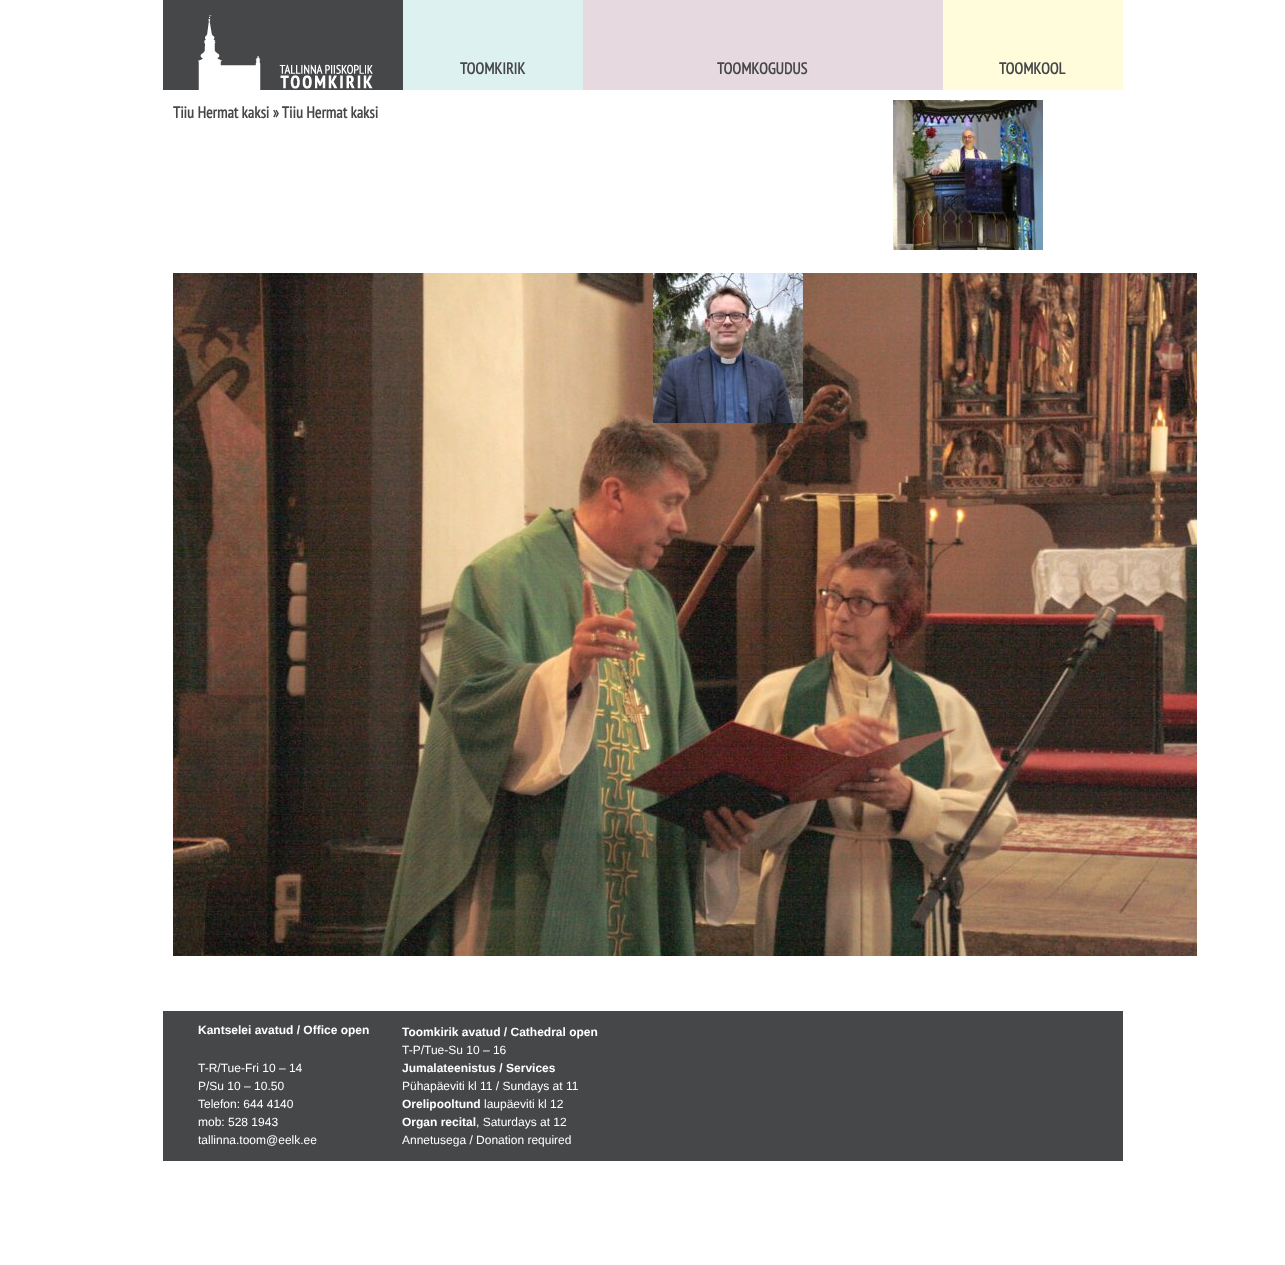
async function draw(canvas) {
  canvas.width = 1285;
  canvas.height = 1265;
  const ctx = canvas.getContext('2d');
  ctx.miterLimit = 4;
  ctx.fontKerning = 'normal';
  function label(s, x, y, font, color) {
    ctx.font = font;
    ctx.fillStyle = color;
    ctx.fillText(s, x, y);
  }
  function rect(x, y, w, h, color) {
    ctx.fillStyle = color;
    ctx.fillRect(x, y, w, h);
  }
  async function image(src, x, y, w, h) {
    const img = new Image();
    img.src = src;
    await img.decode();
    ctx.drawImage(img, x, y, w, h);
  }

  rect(0, 0, 1285, 1265, '#fff');
  rect(163, 0, 240, 90, '#464749');
  await image('assets/img1.png', 172, 0, 201, 90);
  rect(403, 0, 180, 90, '#ddf1f1');
  label('TOOMKIRIK', 460, 74, 'bold 16px PT Sans Narrow', '#464749');
  rect(583, 0, 360, 90, '#e6d9e0');
  label('TOOMKOGUDUS', 717, 74, 'bold 16px PT Sans Narrow', '#464749');
  rect(943, 0, 180, 90, '#fffcdb');
  label('TOOMKOOL', 999, 74, 'bold 16px PT Sans Narrow', '#464749');
  label('Tiiu Hermat kaksi » Tiiu Hermat kaksi', 173, 118, 'bold 16px PT Sans Narrow', '#464749');
  await image('assets/img2.png', 893, 100, 150, 150);
  await image('assets/img3.png', 173, 273, 1024, 683);
  await image('assets/img4.png', 653, 273, 150, 150);
  rect(163, 1011, 960, 150, '#464749');
  label('Kantselei avatud / Office open', 198, 1034, 'bold 12px Liberation Sans', '#fff');
  label('T-R/Tue-Fri 10 – 14', 198, 1072, '12px Liberation Sans', '#fff');
  label('P/Su 10 – 10.50', 198, 1090, '12px Liberation Sans', '#fff');
  label('Telefon: 644 4140', 198, 1108, '12px Liberation Sans', '#fff');
  label('mob: 528 1943', 198, 1126, '12px Liberation Sans', '#fff');
  label('tallinna.toom@eelk.ee', 198, 1144, '12px Liberation Sans', '#fff');
  label('Toomkirik avatud / Cathedral open', 402, 1036, 'bold 12px Liberation Sans', '#fff');
  label('T-P/Tue-Su 10 – 16', 402, 1054, '12px Liberation Sans', '#fff');
  label('Jumalateenistus / Services', 402, 1072, 'bold 12px Liberation Sans', '#fff');
  label('Pühapäeviti kl 11 / Sundays at 11', 402, 1090, '12px Liberation Sans', '#fff');
  label('Orelipooltund', 402, 1108, 'bold 12px Liberation Sans', '#fff');
  label('laupäeviti kl 12', 484, 1108, '12px Liberation Sans', '#fff');
  label('Organ recital', 402, 1126, 'bold 12px Liberation Sans', '#fff');
  label(', Saturdays at 12', 476, 1126, '12px Liberation Sans', '#fff');
  label('Annetusega / Donation required', 402, 1144, '12px Liberation Sans', '#fff');
}

draw(document.querySelector('canvas'));
